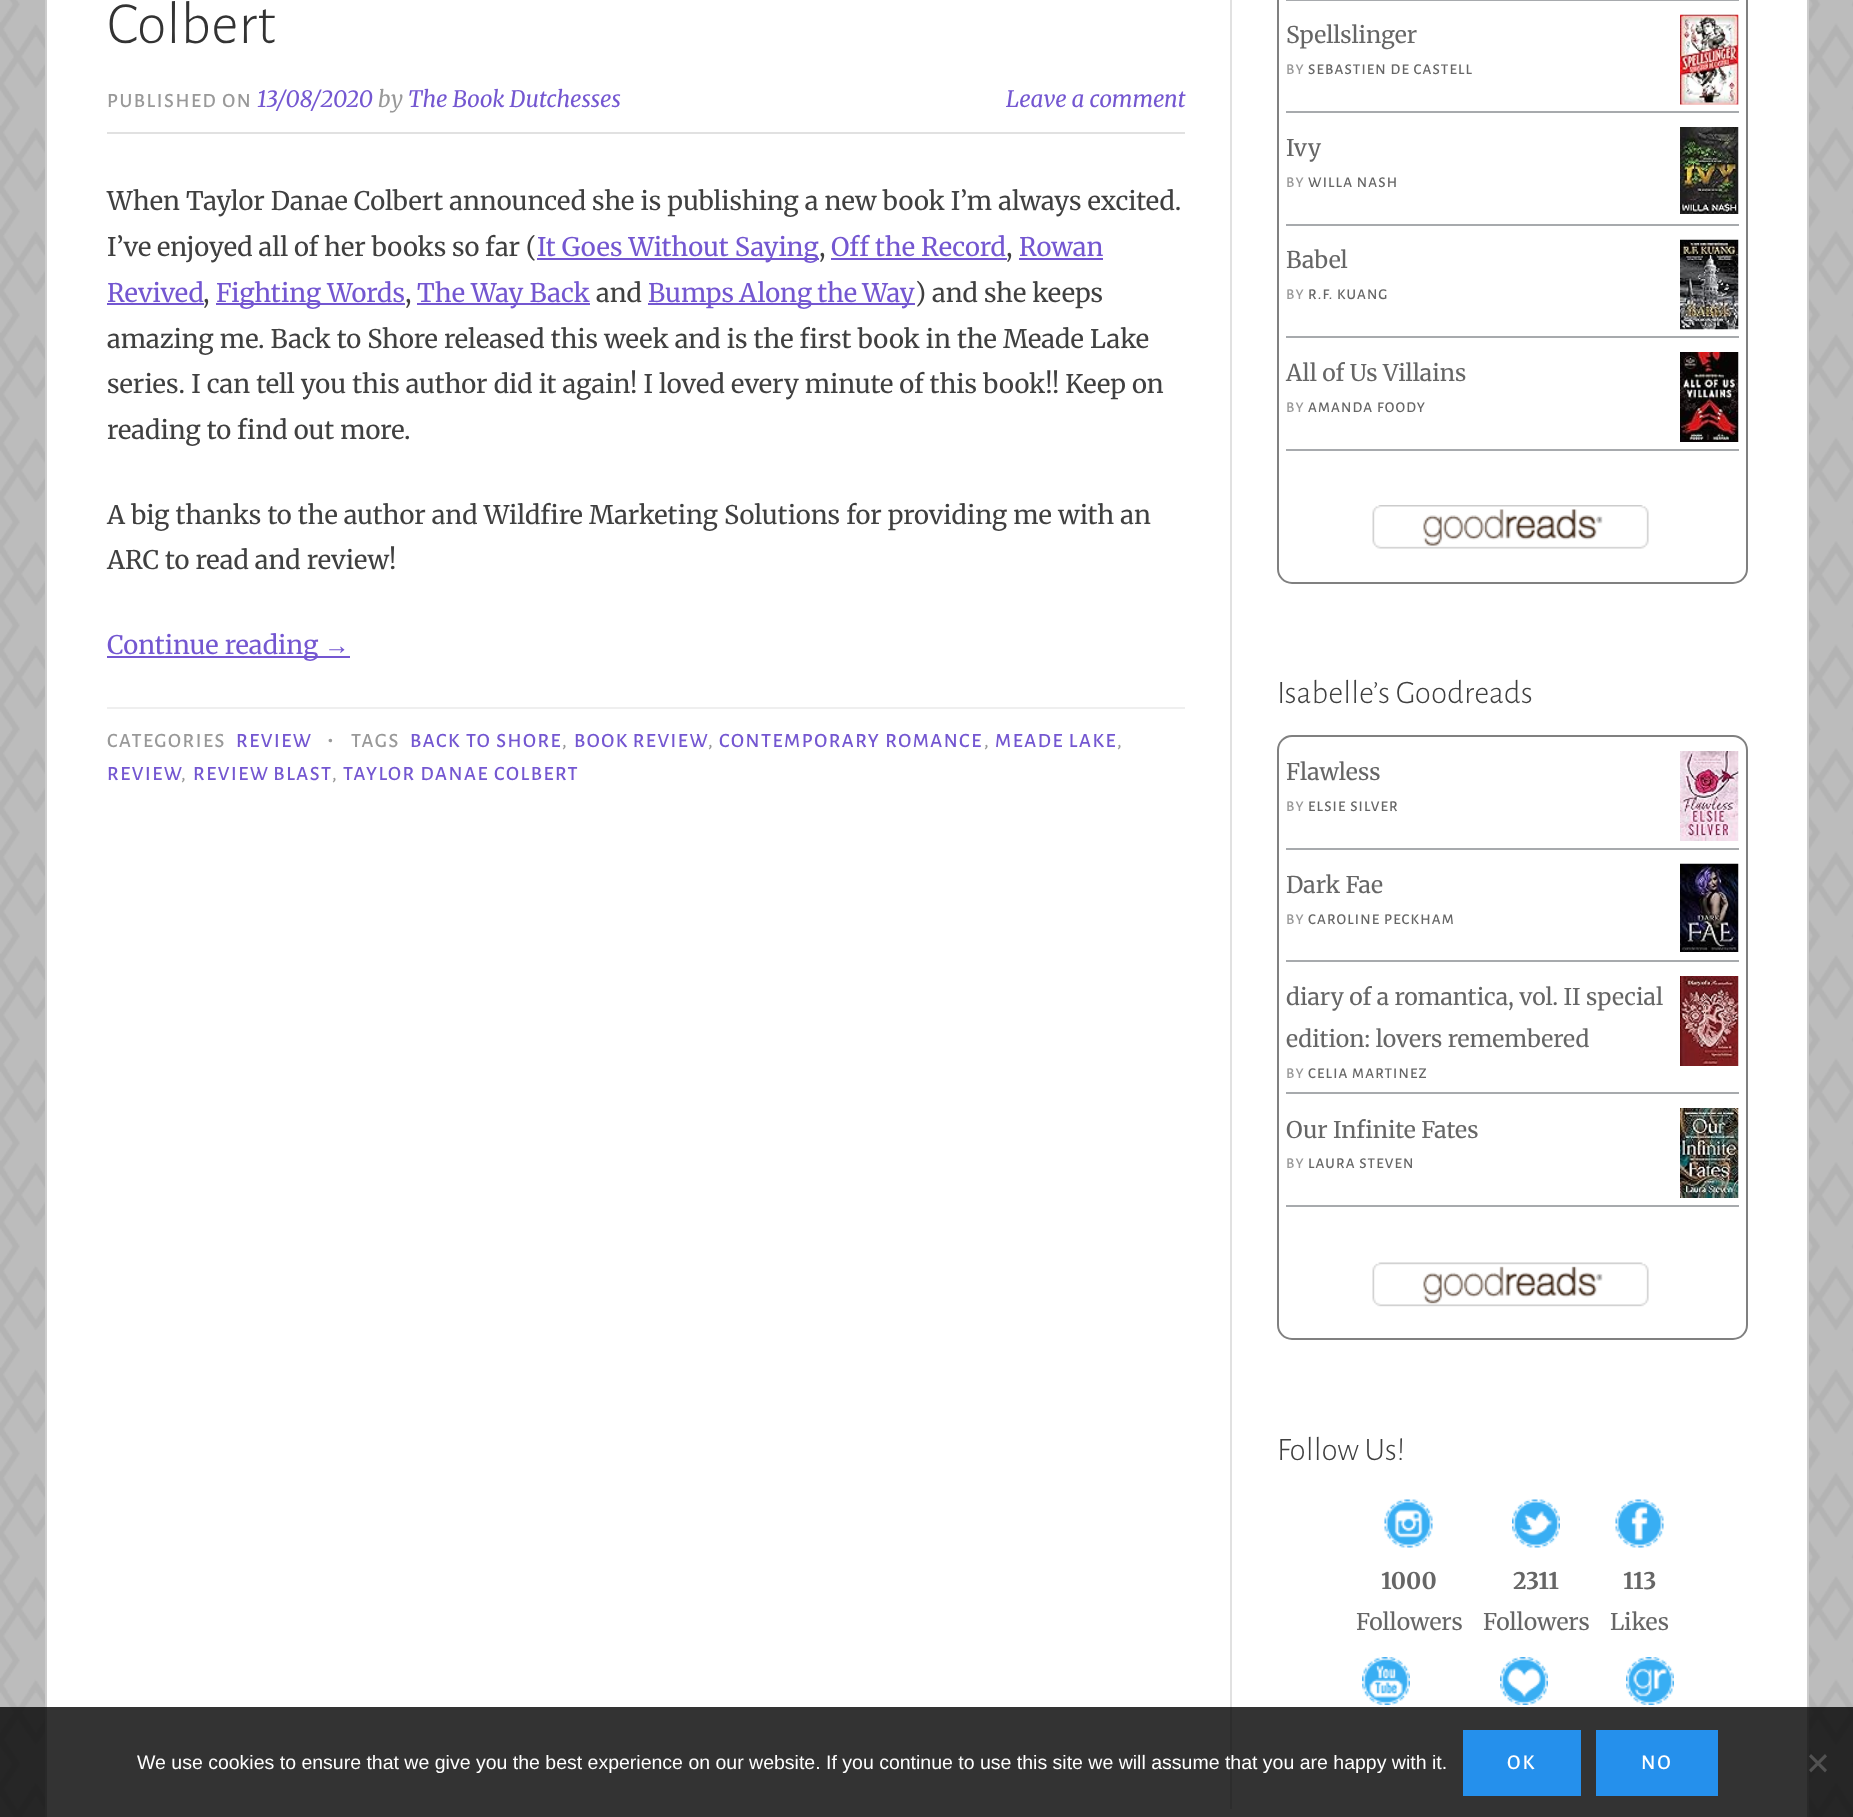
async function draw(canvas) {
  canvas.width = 1853;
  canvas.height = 1817;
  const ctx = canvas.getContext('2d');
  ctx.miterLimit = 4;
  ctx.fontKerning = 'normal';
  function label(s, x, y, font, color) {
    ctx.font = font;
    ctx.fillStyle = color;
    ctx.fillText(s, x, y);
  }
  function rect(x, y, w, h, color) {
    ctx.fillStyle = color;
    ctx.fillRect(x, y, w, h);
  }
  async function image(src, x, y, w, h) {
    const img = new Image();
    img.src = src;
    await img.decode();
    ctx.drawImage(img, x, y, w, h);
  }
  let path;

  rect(0, 0, 1853, 1817, '#bcbcbc');
  await image('assets/img1.png', 0, 0, 1853, 1817);
  ctx.fillStyle = '#fff';
  ctx.beginPath();
  ctx.rect(46, -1, 1762, 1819);
  ctx.fill();
  ctx.strokeStyle = '#ccc';
  ctx.lineWidth = 2;
  ctx.stroke();
  rect(107, 132, 1078, 2, '#e1e1e1');
  label('Colbert', 107, 43, '300 60px Alegreya Sans', '#333');
  ctx.letterSpacing = '1.6px';
  label('PUBLISHED ON', 107, 107, '500 20.25px Alegreya Sans', '#999');
  ctx.letterSpacing = '0px';
  label('13/08/2020', 257, 107, 'italic 22.5px Merriweather', '#7457d1');
  label('by', 378, 107, 'italic 22.5px Merriweather', '#999');
  label('The Book Dutchesses', 408, 107, 'italic 22.5px Merriweather', '#7457d1');
  label('Leave a comment', 1006, 107, 'italic 22.5px Merriweather', '#7457d1');
  label('When Taylor Danae Colbert announced she is publishing a new book I’m always excited.', 107, 210, '25.5px Merriweather', '#404040');
  ctx.wordSpacing = '-0.25px';
  label('I’ve enjoyed all of her books so far (', 107, 256, '25.5px Merriweather', '#404040');
  rect(537, 258, 282, 2, '#7457d1');
  ctx.wordSpacing = '0px';
  label('It Goes Without Saying', 537, 256, '25.5px Merriweather', '#7457d1');
  label(',', 819, 256, '25.5px Merriweather', '#404040');
  label('Off the Record', 831, 256, '25.5px Merriweather', '#7457d1');
  rect(831, 258, 176, 2, '#7457d1');
  label(',', 1006, 256, '25.5px Merriweather', '#404040');
  label('Rowan', 1019, 256, '25.5px Merriweather', '#7457d1');
  rect(1019, 258, 84, 2, '#7457d1');
  label('Revived', 107, 302, '25.5px Merriweather', '#7457d1');
  rect(107, 303, 97, 2, '#7457d1');
  label(',', 203, 302, '25.5px Merriweather', '#404040');
  rect(216, 303, 189, 2, '#7457d1');
  label('Fighting Words', 216, 302, '25.5px Merriweather', '#7457d1');
  label(',', 405, 302, '25.5px Merriweather', '#404040');
  rect(417, 303, 173, 2, '#7457d1');
  label('The Way Back', 417, 302, '25.5px Merriweather', '#7457d1');
  label('and', 596, 302, '25.5px Merriweather', '#404040');
  rect(648, 303, 267, 2, '#7457d1');
  ctx.wordSpacing = '-1px';
  label('Bumps Along the Way', 648, 302, '25.5px Merriweather', '#7457d1');
  ctx.wordSpacing = '0px';
  label(') and she keeps', 915, 302, '25.5px Merriweather', '#404040');
  label('amazing me. Back to Shore released this week and is the first book in the Meade Lake', 107, 348, '25.5px Merriweather', '#404040');
  label('series. I can tell you this author did it again! I loved every minute of this book!! Keep on', 107, 393, '25.5px Merriweather', '#404040');
  label('reading to find out more.', 107, 439, '25.5px Merriweather', '#404040');
  label('A big thanks to the author and Wildfire Marketing Solutions for providing me with an', 107, 524, '25.5px Merriweather', '#404040');
  label('ARC to read and review!', 107, 569, '25.5px Merriweather', '#404040');
  rect(107, 656, 243, 2, '#7457d1');
  label('Continue reading', 107, 654, '25.5px Merriweather', '#7457d1');
  label('→', 324, 654, '25.5px Liberation Serif', '#7457d1');
  rect(107, 707, 1078, 2, '#efefef');
  ctx.letterSpacing = '1.6px';
  label('CATEGORIES', 107, 747, '500 20.25px Alegreya Sans', '#999');
  label('REVIEW', 236, 747, '500 20.25px Alegreya Sans', '#7457d1');
  ctx.letterSpacing = '2px';
  label('•', 327, 747, '500 27px Alegreya Sans', '#999');
  ctx.letterSpacing = '1.6px';
  label('TAGS', 351, 747, '500 20.25px Alegreya Sans', '#999');
  label('BACK TO SHORE', 410, 747, '500 20.25px Alegreya Sans', '#7457d1');
  ctx.wordSpacing = '-1px';
  label('BOOK REVIEW', 574, 747, '500 20.25px Alegreya Sans', '#7457d1');
  ctx.wordSpacing = '0px';
  label('CONTEMPORARY ROMANCE', 719, 747, '500 20.25px Alegreya Sans', '#7457d1');
  label('MEADE LAKE', 995, 747, '500 20.25px Alegreya Sans', '#7457d1');
  label(',', 562, 747, '500 20.25px Alegreya Sans', '#999');
  label(',', 708, 747, '500 20.25px Alegreya Sans', '#999');
  label(',', 984, 747, '500 20.25px Alegreya Sans', '#999');
  label(',', 1117, 747, '500 20.25px Alegreya Sans', '#999');
  label('REVIEW', 107, 780, '500 20.25px Alegreya Sans', '#7457d1');
  label(',', 181, 780, '500 20.25px Alegreya Sans', '#999');
  ctx.wordSpacing = '-1px';
  label('REVIEW BLAST', 193, 780, '500 20.25px Alegreya Sans', '#7457d1');
  ctx.wordSpacing = '0px';
  label(',', 332, 780, '500 20.25px Alegreya Sans', '#999');
  label('TAYLOR DANAE COLBERT', 343, 780, '500 20.25px Alegreya Sans', '#7457d1');
  rect(1230, 0, 2, 1809, '#e1e1e1');
  ctx.beginPath();
  ctx.roundRect(1278, -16, 469, 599, 14);
  ctx.strokeStyle = '#808080';
  ctx.stroke();
  rect(1286, 0, 453, 1, '#a7aaad');
  rect(1286, 111, 453, 2, '#a7aaad');
  ctx.letterSpacing = '0px';
  label('Spellslinger', 1286, 43, '23px Merriweather', '#666');
  await image('assets/img2.png', 1680, 14, 59, 91);
  ctx.letterSpacing = '1.2px';
  label('BY', 1286, 74, '500 15px Alegreya Sans', '#999');
  label('SEBASTIEN DE CASTELL', 1308, 74, '500 15px Alegreya Sans', '#666');
  rect(1286, 224, 453, 2, '#a7aaad');
  ctx.letterSpacing = '0px';
  label('Ivy', 1286, 156, '23px Merriweather', '#666');
  await image('assets/img3.png', 1680, 127, 59, 87);
  ctx.letterSpacing = '1.2px';
  label('BY', 1286, 187, '500 15px Alegreya Sans', '#999');
  label('WILLA NASH', 1308, 187, '500 15px Alegreya Sans', '#666');
  rect(1286, 336, 453, 2, '#a7aaad');
  ctx.letterSpacing = '0px';
  label('Babel', 1286, 268, '23px Merriweather', '#666');
  await image('assets/img4.png', 1680, 239, 59, 91);
  ctx.letterSpacing = '1.2px';
  label('BY', 1286, 299, '500 15px Alegreya Sans', '#999');
  label('R.F. KUANG', 1308, 299, '500 15px Alegreya Sans', '#666');
  rect(1286, 449, 453, 2, '#a7aaad');
  ctx.letterSpacing = '0px';
  label('All of Us Villains', 1286, 381, '23px Merriweather', '#666');
  await image('assets/img5.png', 1680, 352, 59, 90);
  ctx.letterSpacing = '1.2px';
  label('BY', 1286, 412, '500 15px Alegreya Sans', '#999');
  label('AMANDA FOODY', 1308, 412, '500 15px Alegreya Sans', '#666');
  await image('assets/img6.png', 1372, 505, 277, 44);
  ctx.letterSpacing = '0px';
  label('Isabelle’s Goodreads', 1277, 703, '300 33px Alegreya Sans', '#404040');
  ctx.beginPath();
  ctx.roundRect(1278, 736, 469, 603, 14);
  ctx.stroke();
  rect(1286, 848, 453, 2, '#a7aaad');
  label('Flawless', 1286, 780, '23px Merriweather', '#666');
  await image('assets/img7.png', 1680, 751, 59, 90);
  ctx.letterSpacing = '1.2px';
  label('BY', 1286, 811, '500 15px Alegreya Sans', '#999');
  label('ELSIE SILVER', 1308, 811, '500 15px Alegreya Sans', '#666');
  rect(1286, 960, 453, 2, '#a7aaad');
  ctx.letterSpacing = '0px';
  label('Dark Fae', 1286, 893, '23px Merriweather', '#666');
  await image('assets/img8.png', 1680, 863, 59, 89);
  ctx.letterSpacing = '1.2px';
  label('BY', 1286, 924, '500 15px Alegreya Sans', '#999');
  label('CAROLINE PECKHAM', 1308, 924, '500 15px Alegreya Sans', '#666');
  rect(1286, 1092, 453, 2, '#a7aaad');
  ctx.letterSpacing = '0px';
  label('diary of a romantica, vol. II special', 1286, 1005, '23px Merriweather', '#666');
  label('edition: lovers remembered', 1286, 1047, '23px Merriweather', '#666');
  await image('assets/img9.png', 1680, 976, 59, 90);
  ctx.letterSpacing = '1.2px';
  label('BY', 1286, 1078, '500 15px Alegreya Sans', '#999');
  label('CELIA MARTINEZ', 1308, 1078, '500 15px Alegreya Sans', '#666');
  rect(1286, 1205, 453, 2, '#a7aaad');
  ctx.letterSpacing = '0px';
  label('Our Infinite Fates', 1286, 1138, '23px Merriweather', '#666');
  await image('assets/img10.png', 1680, 1108, 59, 90);
  ctx.letterSpacing = '1.2px';
  label('BY', 1286, 1168, '500 15px Alegreya Sans', '#999');
  label('LAURA STEVEN', 1308, 1168, '500 15px Alegreya Sans', '#666');
  await image('assets/img11.png', 1372, 1262, 277, 45);
  ctx.letterSpacing = '0px';
  label('Follow Us!', 1277, 1460, '300 33px Alegreya Sans', '#404040');
  await image('assets/img12.png', 1384, 1499, 49, 49);
  label('1000', 1381, 1589, 'bold 23px Merriweather', '#666');
  label('Followers', 1356, 1630, '23px Merriweather', '#666');
  await image('assets/img13.png', 1512, 1499, 48, 49);
  label('2311', 1513, 1589, 'bold 23px Merriweather', '#666');
  label('Followers', 1483, 1630, '23px Merriweather', '#666');
  await image('assets/img14.png', 1615, 1499, 49, 49);
  label('113', 1623, 1589, 'bold 23px Merriweather', '#666');
  label('Likes', 1610, 1630, '23px Merriweather', '#666');
  await image('assets/img15.png', 1362, 1657, 48, 48);
  await image('assets/img16.png', 1500, 1657, 48, 48);
  await image('assets/img17.png', 1626, 1657, 48, 48);
  rect(0, 1707, 1853, 110, '#000000cc');
  label('We use cookies to ensure that we give you the best experience on our website. If you continue to use this site we will assume that you are happy with it.', 137, 1769, '19.5px Liberation Sans', '#fff');
  rect(1463, 1730, 118, 66, '#2590ec');
  ctx.letterSpacing = '2px';
  label('OK', 1507, 1769, '500 21px Alegreya Sans', '#fff');
  rect(1596, 1730, 122, 66, '#2590ec');
  label('NO', 1641, 1769, '500 21px Alegreya Sans', '#fff');
  ctx.fillStyle = '#525252';
  path = new Path2D('M1825 1754L1827 1756.5L1811 1772.5L1809 1770Z');
  ctx.fill(path);
  path = new Path2D('M1809 1756.5L1811 1754L1827 1770L1825 1772.5Z');
  ctx.fill(path);
}

draw(document.querySelector('canvas'));
